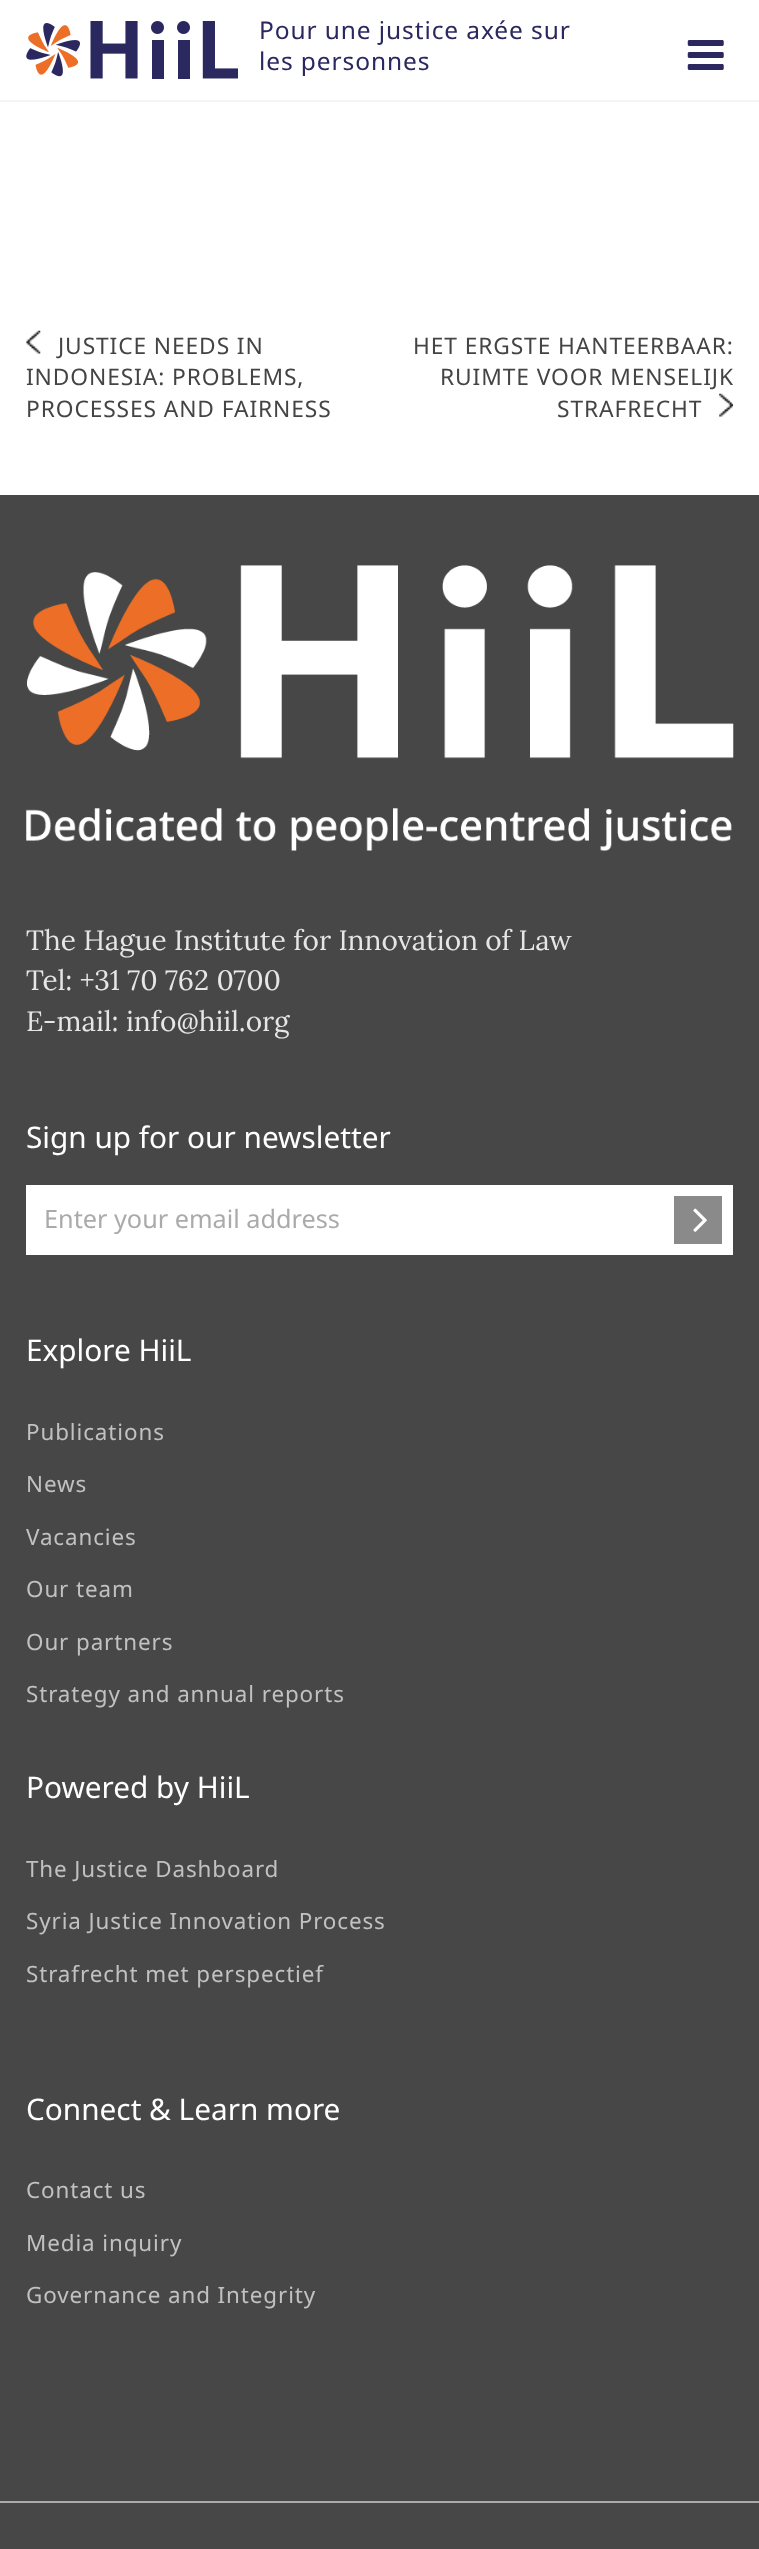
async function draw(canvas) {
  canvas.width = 759;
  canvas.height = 2549;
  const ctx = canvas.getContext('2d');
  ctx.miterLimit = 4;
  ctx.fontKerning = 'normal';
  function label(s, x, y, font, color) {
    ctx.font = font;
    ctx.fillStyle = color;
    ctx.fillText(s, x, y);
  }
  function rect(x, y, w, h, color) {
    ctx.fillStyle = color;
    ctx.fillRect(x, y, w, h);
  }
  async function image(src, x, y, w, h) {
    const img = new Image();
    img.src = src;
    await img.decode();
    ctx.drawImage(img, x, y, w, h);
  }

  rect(0, 0, 759, 2549, '#fff');
  rect(0, 100, 759, 2, '#f4f4f4');
  await image('assets/img1.png', 26, 21, 212, 58);
  ctx.letterSpacing = '0.9px';
  label('Pour une justice axée sur', 259, 39, '24.5px Noto Sans', '#2a285f');
  label('les personnes', 259, 70, '24.5px Noto Sans', '#2a285f');
  await image('assets/img2.png', 26, 330, 15, 24);
  label('JUSTICE NEEDS IN', 58, 354, '22.75px Noto Sans', '#444');
  label('INDONESIA: PROBLEMS,', 26, 385, '22.75px Noto Sans', '#444');
  label('PROCESSES AND FAIRNESS', 26, 417, '22.75px Noto Sans', '#444');
  label('HET ERGSTE HANTEERBAAR:', 413, 354, '22.75px Noto Sans', '#444');
  label('RUIMTE VOOR MENSELIJK', 440, 385, '22.75px Noto Sans', '#444');
  label('STRAFRECHT', 557, 417, '22.75px Noto Sans', '#444');
  await image('assets/img3.png', 719, 393, 15, 24);
  rect(0, 495, 759, 830, '#464746');
  await image('assets/img4.png', 26, 565, 708, 286);
  ctx.letterSpacing = '0px';
  label('The Hague Institute for Innovation of Law', 26, 950, '28px Lora', '#e6e6e6');
  label('Tel: +31 70 762 0700', 26, 990, '28px Lora', '#e6e6e6');
  label('E-mail: info@hiil.org', 26, 1031, '28px Lora', '#e6e6e6');
  label('Sign up for our newsletter', 26, 1148, '29.75px Noto Sans', '#fff');
  rect(26, 1185, 637, 70, '#fff');
  label('Enter your email address', 44, 1228, '25.25px Noto Sans', '#aaa');
  ctx.fillStyle = '#8a8a8a';
  ctx.beginPath();
  ctx.rect(668.5, 1190.5, 59, 59);
  ctx.fill();
  ctx.strokeStyle = '#fff';
  ctx.lineWidth = 11;
  ctx.stroke();
  await image('assets/img5.png', 693, 1208, 14, 24);
  rect(0, 1325, 759, 1224, '#464746');
  rect(0, 2501, 759, 2, '#aaa');
  label('Explore HiiL', 26, 1361, '29.75px Noto Sans', '#fff');
  ctx.letterSpacing = '0.9px';
  label('Publications', 26, 1440, '22.4px Noto Sans', '#c1c1c1');
  label('News', 26, 1492, '22.4px Noto Sans', '#c1c1c1');
  label('Vacancies', 26, 1545, '22.4px Noto Sans', '#c1c1c1');
  label('Our team', 26, 1597, '22.4px Noto Sans', '#c1c1c1');
  label('Our partners', 26, 1650, '22.4px Noto Sans', '#c1c1c1');
  label('Strategy and annual reports', 26, 1702, '22.4px Noto Sans', '#c1c1c1');
  ctx.letterSpacing = '0px';
  label('Powered by HiiL', 26, 1798, '29.75px Noto Sans', '#fff');
  ctx.letterSpacing = '0.9px';
  label('The Justice Dashboard', 26, 1877, '22.4px Noto Sans', '#c1c1c1');
  label('Syria Justice Innovation Process', 26, 1929, '22.4px Noto Sans', '#c1c1c1');
  label('Strafrecht met perspectief', 26, 1982, '22.4px Noto Sans', '#c1c1c1');
  ctx.letterSpacing = '0px';
  label('Connect & Learn more', 26, 2120, '29.75px Noto Sans', '#fff');
  ctx.letterSpacing = '0.9px';
  label('Contact us', 26, 2198, '22.4px Noto Sans', '#c1c1c1');
  label('Media inquiry', 26, 2251, '22.4px Noto Sans', '#c1c1c1');
  label('Governance and Integrity', 26, 2303, '22.4px Noto Sans', '#c1c1c1');
  await image('assets/img6.png', 687, 40, 37, 30);
}

draw(document.querySelector('canvas'));
